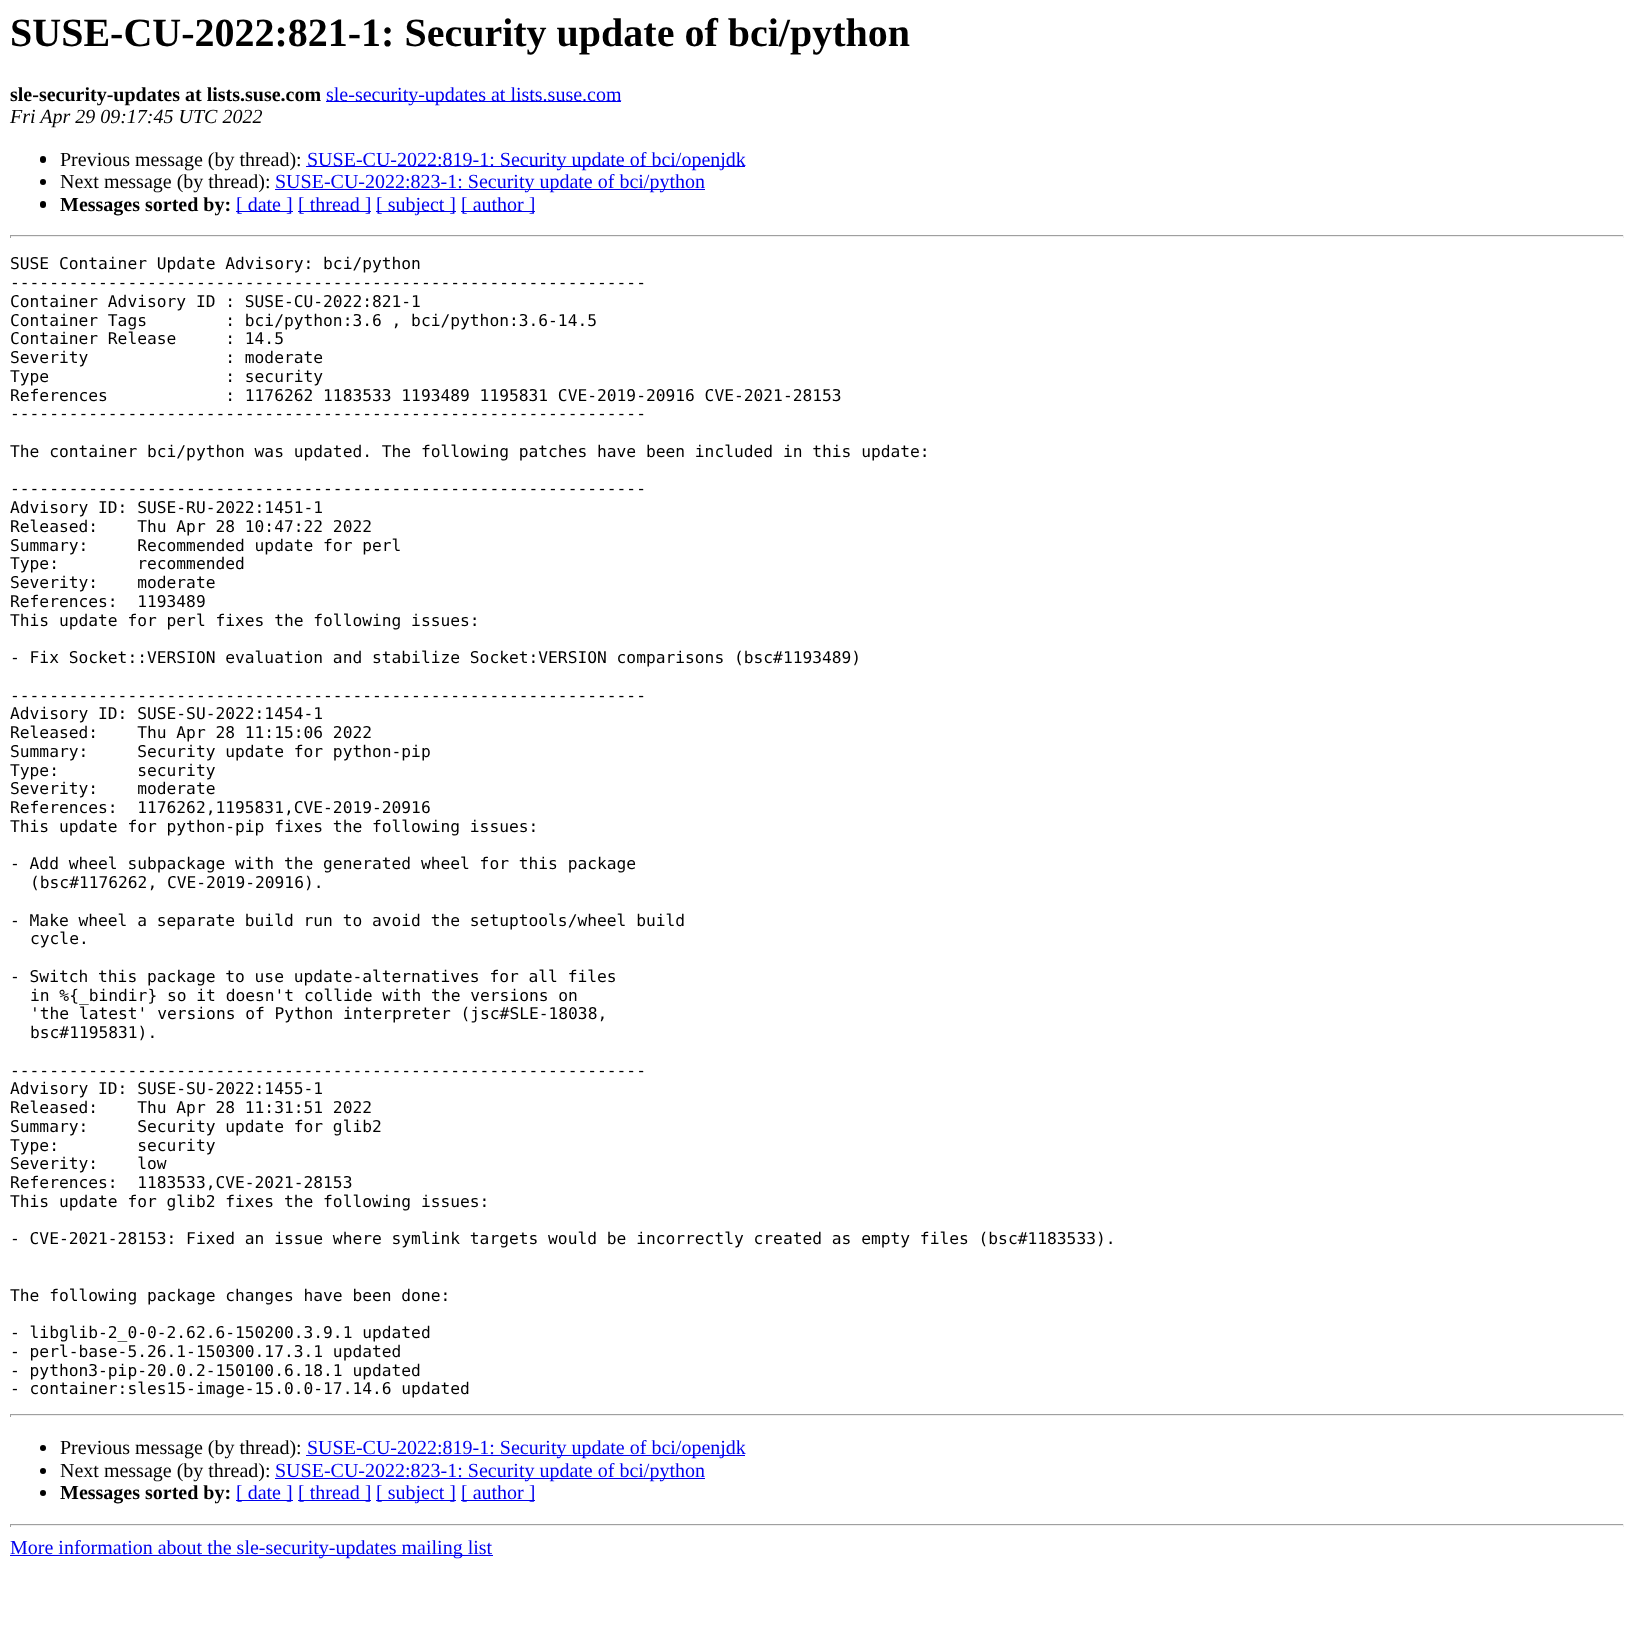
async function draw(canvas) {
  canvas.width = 1633;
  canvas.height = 1631;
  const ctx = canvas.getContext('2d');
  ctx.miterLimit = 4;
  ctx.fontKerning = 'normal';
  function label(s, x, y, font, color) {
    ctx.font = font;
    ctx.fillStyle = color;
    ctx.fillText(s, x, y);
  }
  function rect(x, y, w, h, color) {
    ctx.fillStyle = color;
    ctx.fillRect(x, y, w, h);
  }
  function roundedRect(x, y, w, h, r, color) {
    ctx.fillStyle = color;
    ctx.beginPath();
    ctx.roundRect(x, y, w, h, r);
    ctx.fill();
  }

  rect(0, 0, 1633, 1631, '#fff');
  label('SUSE-CU-2022:821-1: Security update of bci/python', 10, 46, 'bold 40px Liberation Serif', '#000');
  label('sle-security-updates at lists.suse.com', 10, 101, 'bold 20px Liberation Serif', '#000');
  rect(326, 101, 295, 1, '#00e');
  label('sle-security-updates at lists.suse.com', 326, 101, '20px Liberation Serif', '#00e');
  label('Fri Apr 29 09:17:45 UTC 2022', 10, 123, 'italic 20px Liberation Serif', '#000');
  roundedRect(40, 156, 6, 7, 3, '#000');
  label('Previous message (by thread):', 60, 166, '20px Liberation Serif', '#000');
  rect(306, 166, 439, 1, '#00e');
  label('SUSE-CU-2022:819-1: Security update of bci/openjdk', 307, 166, '20px Liberation Serif', '#00e');
  ctx.fillStyle = '#000';
  ctx.beginPath();
  ctx.arc(43, 182, 3, 0, 2 * Math.PI);
  ctx.fill();
  label('Next message (by thread):', 60, 188, '20px Liberation Serif', '#000');
  rect(275, 189, 430, 1, '#00e');
  label('SUSE-CU-2022:823-1: Security update of bci/python', 275, 188, '20px Liberation Serif', '#00e');
  roundedRect(40, 201, 6, 7, 3, '#000');
  label('Messages sorted by:', 60, 211, 'bold 20px Liberation Serif', '#000');
  rect(236, 211, 57, 1, '#00e');
  label('[ date ]', 236, 211, '20px Liberation Serif', '#00e');
  rect(298, 211, 73, 1, '#00e');
  label('[ thread ]', 298, 211, '20px Liberation Serif', '#00e');
  rect(376, 211, 80, 1, '#00e');
  label('[ subject ]', 376, 211, '20px Liberation Serif', '#00e');
  rect(461, 211, 74, 1, '#00e');
  label('[ author ]', 461, 211, '20px Liberation Serif', '#00e');
  rect(10, 235, 1614, 1, '#9f9f9f');
  rect(1623, 235, 1, 3, '#eee');
  rect(10, 236, 1614, 1, '#eee');
  rect(10, 235, 1, 3, '#9f9f9f');
  label('SUSE Container Update Advisory: bci/python', 10, 269, '16.25px DejaVu Sans Mono', '#000');
  label('-----------------------------------------------------------------', 10, 288, '16.25px DejaVu Sans Mono', '#000');
  label('Container Advisory ID : SUSE-CU-2022:821-1', 10, 307, '16.25px DejaVu Sans Mono', '#000');
  label('Container Tags        : bci/python:3.6 , bci/python:3.6-14.5', 10, 326, '16.25px DejaVu Sans Mono', '#000');
  label('Container Release     : 14.5', 10, 344, '16.25px DejaVu Sans Mono', '#000');
  label('Severity              : moderate', 10, 363, '16.25px DejaVu Sans Mono', '#000');
  label('Type                  : security', 10, 382, '16.25px DejaVu Sans Mono', '#000');
  label('References            : 1176262 1183533 1193489 1195831 CVE-2019-20916 CVE-2021-28153', 10, 401, '16.25px DejaVu Sans Mono', '#000');
  label('-----------------------------------------------------------------', 10, 419, '16.25px DejaVu Sans Mono', '#000');
  label('The container bci/python was updated. The following patches have been included in this update:', 10, 457, '16.25px DejaVu Sans Mono', '#000');
  label('-----------------------------------------------------------------', 10, 494, '16.25px DejaVu Sans Mono', '#000');
  label('Advisory ID: SUSE-RU-2022:1451-1', 10, 513, '16.25px DejaVu Sans Mono', '#000');
  label('Released:    Thu Apr 28 10:47:22 2022', 10, 532, '16.25px DejaVu Sans Mono', '#000');
  label('Summary:     Recommended update for perl', 10, 551, '16.25px DejaVu Sans Mono', '#000');
  label('Type:        recommended', 10, 569, '16.25px DejaVu Sans Mono', '#000');
  label('Severity:    moderate', 10, 588, '16.25px DejaVu Sans Mono', '#000');
  label('References:  1193489', 10, 607, '16.25px DejaVu Sans Mono', '#000');
  label('This update for perl fixes the following issues:', 10, 626, '16.25px DejaVu Sans Mono', '#000');
  label('- Fix Socket::VERSION evaluation and stabilize Socket:VERSION comparisons (bsc#1193489)', 10, 663, '16.25px DejaVu Sans Mono', '#000');
  label('-----------------------------------------------------------------', 10, 701, '16.25px DejaVu Sans Mono', '#000');
  label('Advisory ID: SUSE-SU-2022:1454-1', 10, 719, '16.25px DejaVu Sans Mono', '#000');
  label('Released:    Thu Apr 28 11:15:06 2022', 10, 738, '16.25px DejaVu Sans Mono', '#000');
  label('Summary:     Security update for python-pip', 10, 757, '16.25px DejaVu Sans Mono', '#000');
  label('Type:        security', 10, 776, '16.25px DejaVu Sans Mono', '#000');
  label('Severity:    moderate', 10, 794, '16.25px DejaVu Sans Mono', '#000');
  label('References:  1176262,1195831,CVE-2019-20916', 10, 813, '16.25px DejaVu Sans Mono', '#000');
  label('This update for python-pip fixes the following issues:', 10, 832, '16.25px DejaVu Sans Mono', '#000');
  label('- Add wheel subpackage with the generated wheel for this package', 10, 869, '16.25px DejaVu Sans Mono', '#000');
  label('(bsc#1176262, CVE-2019-20916).', 30, 888, '16.25px DejaVu Sans Mono', '#000');
  label('- Make wheel a separate build run to avoid the setuptools/wheel build', 10, 926, '16.25px DejaVu Sans Mono', '#000');
  label('cycle.', 30, 944, '16.25px DejaVu Sans Mono', '#000');
  label('- Switch this package to use update-alternatives for all files', 10, 982, '16.25px DejaVu Sans Mono', '#000');
  label('in %{_bindir} so it doesn\'t collide with the versions on', 30, 1001, '16.25px DejaVu Sans Mono', '#000');
  label('\'the latest\' versions of Python interpreter (jsc#SLE-18038,', 30, 1019, '16.25px DejaVu Sans Mono', '#000');
  label('bsc#1195831).', 30, 1038, '16.25px DejaVu Sans Mono', '#000');
  label('-----------------------------------------------------------------', 10, 1076, '16.25px DejaVu Sans Mono', '#000');
  label('Advisory ID: SUSE-SU-2022:1455-1', 10, 1094, '16.25px DejaVu Sans Mono', '#000');
  label('Released:    Thu Apr 28 11:31:51 2022', 10, 1113, '16.25px DejaVu Sans Mono', '#000');
  label('Summary:     Security update for glib2', 10, 1132, '16.25px DejaVu Sans Mono', '#000');
  label('Type:        security', 10, 1151, '16.25px DejaVu Sans Mono', '#000');
  label('Severity:    low', 10, 1169, '16.25px DejaVu Sans Mono', '#000');
  label('References:  1183533,CVE-2021-28153', 10, 1188, '16.25px DejaVu Sans Mono', '#000');
  label('This update for glib2 fixes the following issues:', 10, 1207, '16.25px DejaVu Sans Mono', '#000');
  label('- CVE-2021-28153: Fixed an issue where symlink targets would be incorrectly created as empty files (bsc#1183533).', 10, 1244, '16.25px DejaVu Sans Mono', '#000');
  label('The following package changes have been done:', 10, 1301, '16.25px DejaVu Sans Mono', '#000');
  label('- libglib-2_0-0-2.62.6-150200.3.9.1 updated', 10, 1338, '16.25px DejaVu Sans Mono', '#000');
  label('- perl-base-5.26.1-150300.17.3.1 updated', 10, 1357, '16.25px DejaVu Sans Mono', '#000');
  label('- python3-pip-20.0.2-150100.6.18.1 updated', 10, 1376, '16.25px DejaVu Sans Mono', '#000');
  label('- container:sles15-image-15.0.0-17.14.6 updated', 10, 1394, '16.25px DejaVu Sans Mono', '#000');
  rect(10, 1414, 1614, 1, '#9f9f9f');
  rect(1623, 1414, 1, 3, '#eee');
  rect(10, 1415, 1614, 1, '#eee');
  rect(10, 1414, 1, 3, '#9f9f9f');
  ctx.fillStyle = '#000';
  ctx.beginPath();
  ctx.arc(43, 1448, 3, 0, 2 * Math.PI);
  ctx.fill();
  label('Previous message (by thread):', 60, 1454, '20px Liberation Serif', '#000');
  rect(306, 1455, 439, 1, '#00e');
  label('SUSE-CU-2022:819-1: Security update of bci/openjdk', 307, 1454, '20px Liberation Serif', '#00e');
  ctx.fillStyle = '#000';
  ctx.beginPath();
  ctx.arc(43, 1471, 3, 0, 2 * Math.PI);
  ctx.fill();
  label('Next message (by thread):', 60, 1477, '20px Liberation Serif', '#000');
  rect(275, 1478, 430, 1, '#00e');
  label('SUSE-CU-2022:823-1: Security update of bci/python', 275, 1477, '20px Liberation Serif', '#00e');
  ctx.fillStyle = '#000';
  ctx.beginPath();
  ctx.arc(43, 1493, 3, 0, 2 * Math.PI);
  ctx.fill();
  label('Messages sorted by:', 60, 1499, 'bold 20px Liberation Serif', '#000');
  rect(236, 1500, 57, 1, '#00e');
  label('[ date ]', 236, 1499, '20px Liberation Serif', '#00e');
  rect(298, 1500, 73, 1, '#00e');
  label('[ thread ]', 298, 1499, '20px Liberation Serif', '#00e');
  rect(376, 1500, 80, 1, '#00e');
  label('[ subject ]', 376, 1499, '20px Liberation Serif', '#00e');
  rect(461, 1500, 74, 1, '#00e');
  label('[ author ]', 461, 1499, '20px Liberation Serif', '#00e');
  rect(10, 1524, 1614, 1, '#9f9f9f');
  rect(1623, 1524, 1, 3, '#eee');
  rect(10, 1525, 1614, 1, '#eee');
  rect(10, 1524, 1, 3, '#9f9f9f');
  rect(10, 1555, 483, 1, '#00e');
  label('More information about the sle-security-updates mailing list', 10, 1554, '20px Liberation Serif', '#00e');
}

draw(document.querySelector('canvas'));
